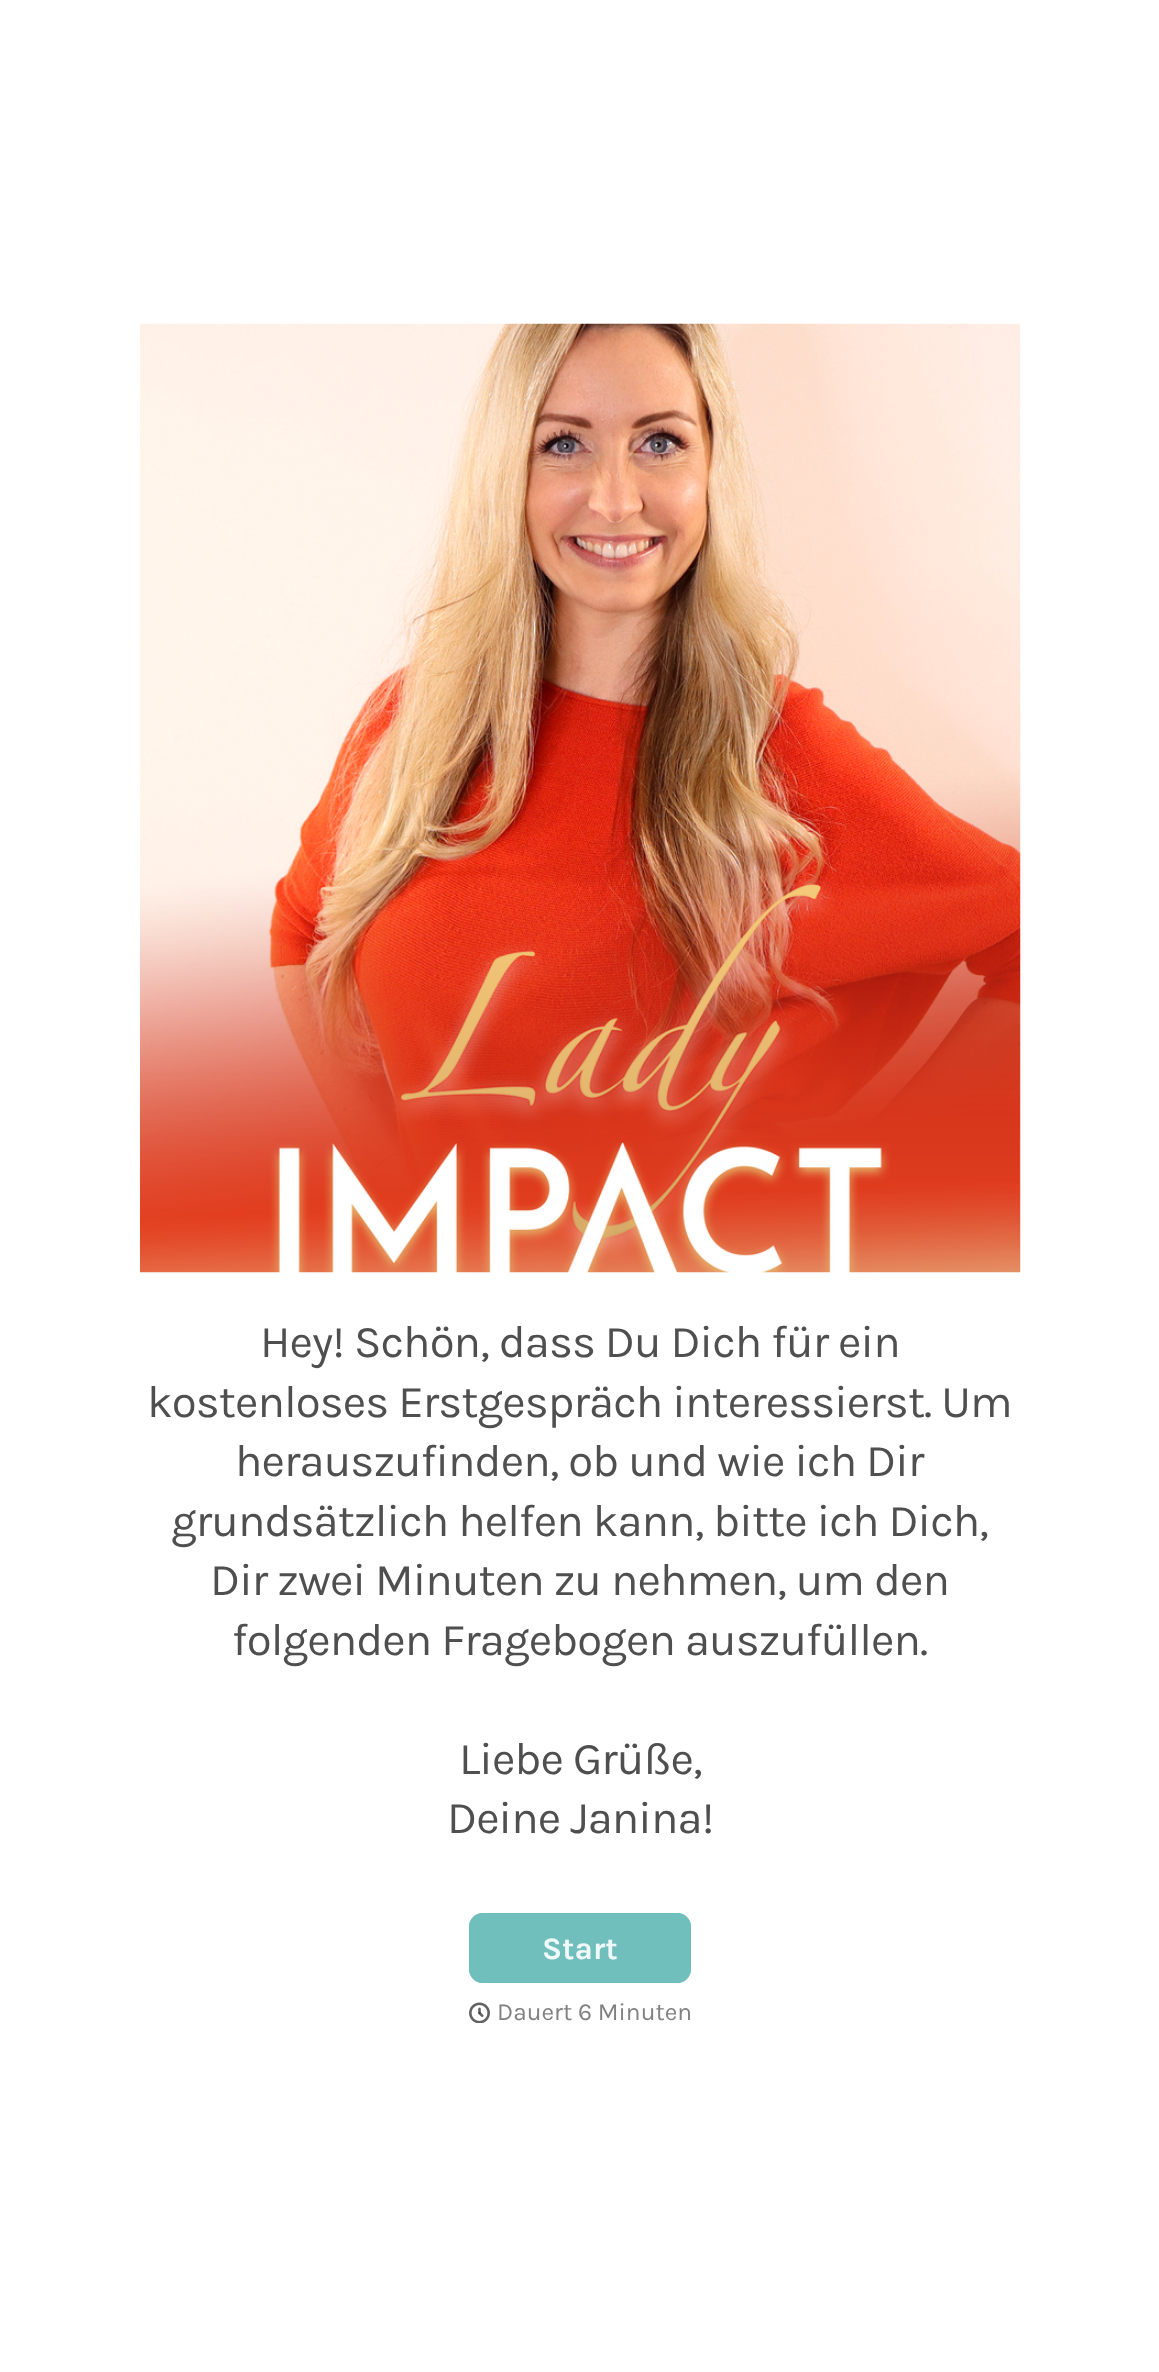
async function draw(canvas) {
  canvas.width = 1159;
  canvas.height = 2372;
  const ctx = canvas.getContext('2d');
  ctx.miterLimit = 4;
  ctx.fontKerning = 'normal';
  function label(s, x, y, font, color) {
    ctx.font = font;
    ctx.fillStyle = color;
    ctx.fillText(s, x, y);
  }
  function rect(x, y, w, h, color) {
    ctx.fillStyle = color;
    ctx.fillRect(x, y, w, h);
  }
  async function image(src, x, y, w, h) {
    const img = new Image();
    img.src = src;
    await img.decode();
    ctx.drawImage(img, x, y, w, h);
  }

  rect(0, 0, 1159, 2372, '#fff');
  await image('assets/img1.png', 140, 323, 881, 950);
  ctx.letterSpacing = '-0.9px';
  label('Hey! Schön, dass Du Dich für ein', 260, 1357, '45.5px Karla', '#4f4f4f');
  label('kostenloses Erstgespräch interessierst. Um', 147, 1417, '45.5px Karla', '#4f4f4f');
  label('herauszufinden, ob und wie ich Dir', 235, 1476, '45.5px Karla', '#4f4f4f');
  label('grundsätzlich helfen kann, bitte ich Dich,', 171, 1536, '45.5px Karla', '#4f4f4f');
  label('Dir zwei Minuten zu nehmen, um den', 210, 1595, '45.5px Karla', '#4f4f4f');
  label('folgenden Fragebogen auszufüllen.', 232, 1655, '45.5px Karla', '#4f4f4f');
  label('Liebe Grüße,', 459, 1774, '45.5px Karla', '#4f4f4f');
  label('Deine Janina!', 447, 1833, '45.5px Karla', '#4f4f4f');
  ctx.beginPath();
  ctx.roundRect(470, 1914, 220, 68, 13);
  ctx.strokeStyle = '#70bfbd';
  ctx.lineWidth = 2;
  ctx.stroke();
  ctx.fillStyle = '#70bfbd';
  ctx.filter = 'blur(0.5px)';
  ctx.beginPath();
  ctx.roundRect(469, 1913, 222, 70, 14);
  ctx.fill();
  ctx.filter = 'none';
  ctx.letterSpacing = '0px';
  label('Start', 542, 1959, 'bold 31.5px Karla', '#f0f9f9');
  await image('assets/img2.png', 469, 2002, 21, 21);
  label('Dauert 6 Minuten', 497, 2020, '24.5px Karla', '#818181');
}

draw(document.querySelector('canvas'));
